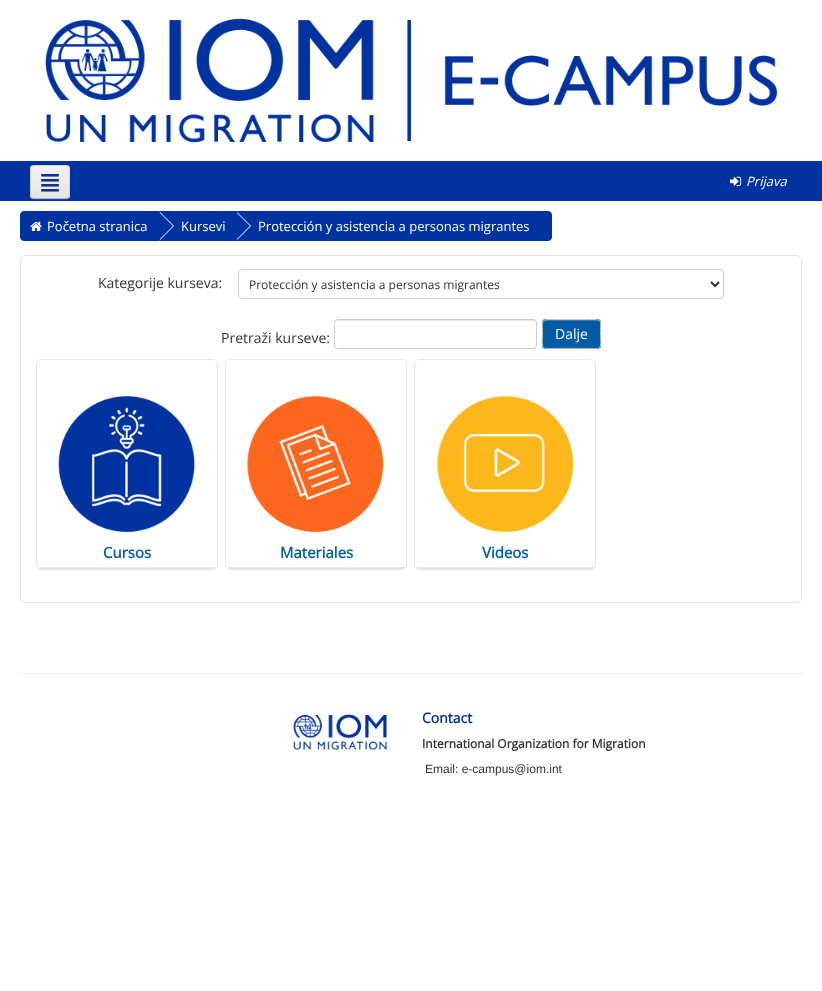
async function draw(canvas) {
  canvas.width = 822;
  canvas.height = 991;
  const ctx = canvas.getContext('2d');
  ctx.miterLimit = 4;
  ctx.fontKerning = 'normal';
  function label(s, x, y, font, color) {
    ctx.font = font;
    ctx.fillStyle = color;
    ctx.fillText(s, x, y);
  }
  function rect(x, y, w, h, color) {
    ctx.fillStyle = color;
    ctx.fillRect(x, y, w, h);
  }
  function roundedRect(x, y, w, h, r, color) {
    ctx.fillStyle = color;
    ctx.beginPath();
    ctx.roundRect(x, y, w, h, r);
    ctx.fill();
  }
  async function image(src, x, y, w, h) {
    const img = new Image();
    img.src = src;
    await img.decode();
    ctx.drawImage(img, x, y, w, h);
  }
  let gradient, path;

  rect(0, 0, 822, 991, '#fff');
  await image('assets/img1.png', 45, 18, 732, 125);
  rect(0, 161, 822, 40, '#0033a0');
  ctx.fillStyle = '#1342a7';
  path = new Path2D('M30 195C30 201 35 200 39 200H61C65 200 70 201 70 195C70 197 68 199 66 199H34C32 199 30 197 30 195Z');
  ctx.fill(path);
  roundedRect(30, 165, 40, 34, 4, '#ededed');
  ctx.save();
  ctx.beginPath();
  ctx.roundRect(30, 165, 40, 34, 4);
  ctx.clip();
  gradient = ctx.createLinearGradient(50, 166, 50, 198);
  gradient.addColorStop(0, '#f2f2f2');
  gradient.addColorStop(1, '#e5e5e5');
  ctx.fillStyle = gradient;
  ctx.fillRect(30, 166, 40, 32);
  ctx.restore();
  path = new Path2D('M68.5 197.5C68 198 67 198.5 66 198.5H34C33 198.5 32 198 31.5 197.5');
  ctx.strokeStyle = '#00000040';
  ctx.stroke(path);
  path = new Path2D('M31.5 197.5C30 196 30.5 192.5 30.5 190.5V173.5C30.5 165 31 165.5 39.5 165.5H60.5C69 165.5 69.5 165 69.5 173.5V190.5C69.5 192.5 70 196 68.5 197.5');
  ctx.strokeStyle = '#0000001a';
  ctx.stroke(path);
  ctx.fillStyle = '#00000073';
  ctx.filter = 'blur(0.5px)';
  ctx.beginPath();
  ctx.roundRect(41, 175, 18, 2, 1);
  ctx.fill();
  ctx.filter = 'none';
  roundedRect(41, 174, 18, 2, 1, '#0033a0');
  ctx.fillStyle = '#00000073';
  ctx.filter = 'blur(0.5px)';
  ctx.beginPath();
  ctx.roundRect(41, 180, 18, 2, 1);
  ctx.fill();
  ctx.filter = 'none';
  roundedRect(41, 179, 18, 2, 1, '#0033a0');
  ctx.fillStyle = '#00000073';
  ctx.filter = 'blur(0.5px)';
  ctx.beginPath();
  ctx.roundRect(41, 185, 18, 2, 1);
  ctx.fill();
  ctx.filter = 'none';
  roundedRect(41, 184, 18, 2, 1, '#0033a0');
  ctx.fillStyle = '#00000073';
  ctx.filter = 'blur(0.5px)';
  ctx.beginPath();
  ctx.roundRect(41, 190, 18, 2, 1);
  ctx.fill();
  ctx.filter = 'none';
  roundedRect(41, 189, 18, 2, 1, '#0033a0');
  await image('assets/img2.png', 730, 176, 12, 10);
  label('Prijava', 746, 186, 'italic 13px Open Sans', '#fff');
  ctx.fillStyle = '#0033a0';
  ctx.beginPath();
  ctx.roundRect(20.5, 211.5, 139, 29, [3.5, 0, 0, 3.5]);
  ctx.fill();
  ctx.strokeStyle = '#0033a0';
  ctx.stroke();
  rect(160, 211, 77, 30, '#0033a0');
  ctx.fillStyle = '#fff';
  path = new Path2D('M160 240V212L174 226Z');
  ctx.fill(path);
  ctx.fillStyle = '#0033a0';
  path = new Path2D('M159 240V212L173 226Z');
  ctx.fill(path);
  await image('assets/img3.png', 30, 221, 12, 10);
  label('Početna stranica', 47, 231, '13px Open Sans', '#fff');
  ctx.fillStyle = '#0033a0';
  ctx.beginPath();
  ctx.roundRect(237.5, 211.5, 314, 29, [0, 3.5, 3.5, 0]);
  ctx.fill();
  ctx.stroke();
  ctx.fillStyle = '#fff';
  path = new Path2D('M237 240V212L251 226Z');
  ctx.fill(path);
  ctx.fillStyle = '#0033a0';
  path = new Path2D('M236 240V212L250 226Z');
  ctx.fill(path);
  label('Kursevi', 181, 231, '13px Open Sans', '#fff');
  label('Protección y asistencia a personas migrantes', 258, 231, '13px Open Sans', '#fff');
  ctx.beginPath();
  ctx.roundRect(20.5, 255.5, 781, 347, 5.5);
  ctx.strokeStyle = '#e3e3e3';
  ctx.stroke();
  label('Kategorije kurseva:', 98, 288, '14px Open Sans', '#333');
  ctx.beginPath();
  ctx.roundRect(238.5, 269.5, 485, 29, 3.5);
  ctx.strokeStyle = '#ccc';
  ctx.stroke();
  path = new Path2D('M711 282L715 286L719 282');
  ctx.strokeStyle = '#333';
  ctx.lineWidth = 2;
  ctx.stroke(path);
  label('Protección y asistencia a personas migrantes', 249, 289, '12px Open Sans', '#333');
  label('Pretraži kurseve:', 221, 343, '14px Open Sans', '#333');
  ctx.fillStyle = '#ececec';
  path = new Path2D('M338 321H533C535 321 536 322 536 324C536 322 535 320 533 320H338C336 320 335 322 335 324C335 322 336 321 338 321Z');
  ctx.fill(path);
  ctx.beginPath();
  ctx.roundRect(334.5, 319.5, 202, 29, 3.5);
  ctx.strokeStyle = '#ccc';
  ctx.lineWidth = 1;
  ctx.stroke();
  ctx.fillStyle = '#0000000d';
  ctx.filter = 'blur(1px)';
  ctx.beginPath();
  ctx.roundRect(542, 320, 59, 30, 4);
  ctx.fill();
  ctx.filter = 'none';
  roundedRect(542, 319, 59, 30, 4, '#005daa');
  ctx.save();
  ctx.beginPath();
  ctx.roundRect(542, 319, 59, 30, 4);
  ctx.clip();
  gradient = ctx.createLinearGradient(572, 348, 572, 320);
  gradient.addColorStop(0, '#005daa');
  gradient.addColorStop(1, '#00549940');
  ctx.fillStyle = gradient;
  ctx.fillRect(542, 320, 59, 28);
  ctx.restore();
  ctx.fillStyle = '#337bb7';
  path = new Path2D('M546 321H597C599 321 600 322 600 324C600 318 593 320 588 320H554C550 320 543 318 543 324C543 322 544 321 546 321Z');
  ctx.fill(path);
  path = new Path2D('M599.5 347.5L597.5 348.5H545.5L543.5 347.5');
  ctx.strokeStyle = '#b3b3b3';
  ctx.stroke(path);
  path = new Path2D('M543.5 347.5C541.5 345.5 542.5 337 542.5 334C542.5 319 540 319.5 554.5 319.5H588.5C603 319.5 600.5 319 600.5 334C600.5 337 601.5 345.5 599.5 347.5');
  ctx.strokeStyle = '#ccc';
  ctx.stroke(path);
  label('Dalje', 555, 339, '14px Open Sans', '#fff');
  ctx.beginPath();
  ctx.roundRect(36.5, 359.5, 181, 210, 4.5);
  ctx.strokeStyle = '#e7e7e7';
  ctx.stroke();
  rect(39, 567, 177, 2, '#e7e7e7');
  await image('assets/img4.png', 58, 395, 137, 138);
  label('Cursos', 103, 558, 'bold 15px Open Sans', '#005daa');
  ctx.beginPath();
  ctx.roundRect(225.5, 359.5, 181, 210, 4.5);
  ctx.stroke();
  rect(228, 567, 177, 2, '#e7e7e7');
  await image('assets/img5.png', 247, 395, 137, 138);
  label('Materiales', 280, 558, 'bold 15px Open Sans', '#005daa');
  ctx.beginPath();
  ctx.roundRect(414.5, 359.5, 181, 210, 4.5);
  ctx.stroke();
  rect(417, 567, 177, 2, '#e7e7e7');
  await image('assets/img6.png', 437, 395, 137, 138);
  label('Videos', 482, 558, 'bold 15px Open Sans', '#005daa');
  rect(20, 673, 782, 1, '#eee');
  await image('assets/img7.png', 293, 714, 94, 36);
  label('Contact', 422, 723, 'bold 14px Open Sans', '#0033a0');
  label('International Organization for Migration', 422, 748, 'bold 12px Open Sans', '#333');
  label('Email: e-campus@iom.int', 425, 773, '12px Liberation Sans', '#333');
}

draw(document.querySelector('canvas'));
